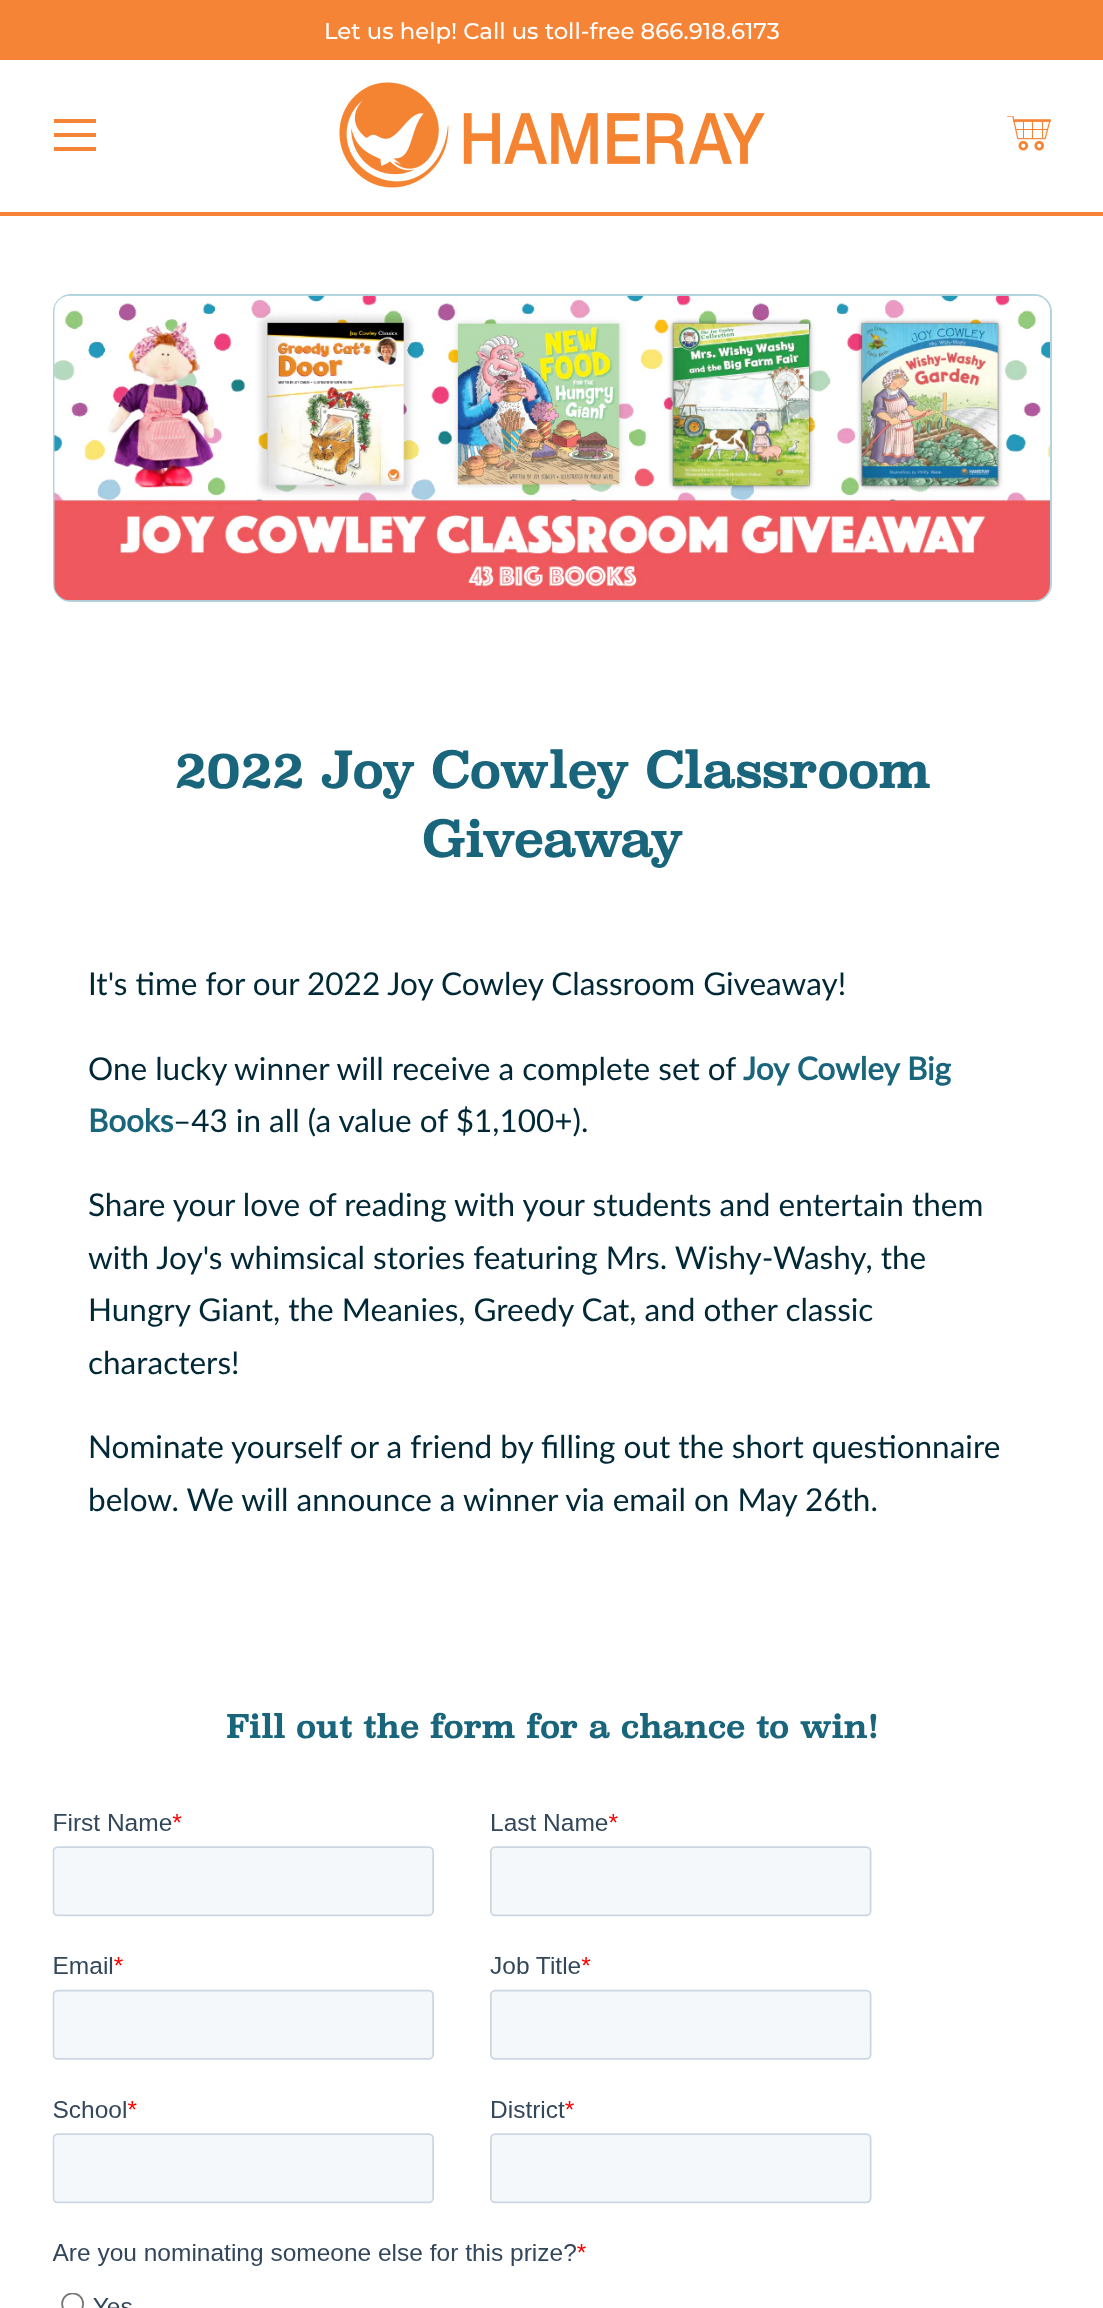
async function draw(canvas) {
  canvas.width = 1103;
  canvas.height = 2308;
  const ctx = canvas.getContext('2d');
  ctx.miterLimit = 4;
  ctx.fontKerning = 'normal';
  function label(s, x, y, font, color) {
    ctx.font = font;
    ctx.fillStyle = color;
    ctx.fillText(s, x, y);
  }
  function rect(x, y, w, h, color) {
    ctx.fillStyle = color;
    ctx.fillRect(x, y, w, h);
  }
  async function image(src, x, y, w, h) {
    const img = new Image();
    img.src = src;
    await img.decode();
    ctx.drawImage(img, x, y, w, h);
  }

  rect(0, 0, 1103, 2308, '#fff');
  rect(0, 212, 1103, 4, '#f58436');
  rect(0, 0, 1103, 60, '#f58436');
  label('Let us help! Call us toll-free 866.918.6173', 324, 39, '500 22.75px Montserrat', '#fff');
  rect(54, 133, 42, 4, '#f58436');
  rect(54, 119, 42, 4, '#f58436');
  rect(54, 147, 42, 4, '#f58436');
  await image('assets/img1.png', 339, 82, 426, 106);
  await image('assets/img2.png', 1007, 116, 44, 35);
  ctx.beginPath();
  ctx.roundRect(54, 295, 997, 306, 17);
  ctx.strokeStyle = '#b1d4de';
  ctx.lineWidth = 2;
  ctx.stroke();
  await image('assets/img3.png', 54, 295, 996, 306);
  label('2022 Joy Cowley Classroom', 174, 788, 'bold 49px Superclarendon', '#19657c');
  label('Giveaway', 422, 857, 'bold 49px Superclarendon', '#19657c');
  label('It\'s time for our 2022 Joy Cowley Classroom Giveaway!', 88, 995, '31.5px Lato', '#002836');
  label('One lucky winner will receive a complete set of', 88, 1080, '31.5px Lato', '#002836');
  label('Joy Cowley Big', 743, 1080, 'bold 31.5px Lato', '#19657c');
  label('Books', 88, 1132, 'bold 31.5px Lato', '#19657c');
  label('–43 in all (a value of $1,100+).', 173, 1132, '31.5px Lato', '#002836');
  label('Share your love of reading with your students and entertain them', 88, 1216, '31.5px Lato', '#002836');
  label('with Joy\'s whimsical stories featuring Mrs. Wishy-Washy, the', 88, 1269, '31.5px Lato', '#002836');
  label('Hungry Giant, the Meanies, Greedy Cat, and other classic', 88, 1321, '31.5px Lato', '#002836');
  label('characters!', 88, 1374, '31.5px Lato', '#002836');
  label('Nominate yourself or a friend by filling out the short questionnaire', 88, 1458, '31.5px Lato', '#002836');
  label('below. We will announce a winner via email on May 26th.', 88, 1511, '31.5px Lato', '#002836');
  label('Fill out the form for a chance to win!', 226, 1738, 'bold 31.5px Superclarendon', '#19657c');
  await image('assets/img4.png', 52, 1814, 820, 494);
}

draw(document.querySelector('canvas'));
